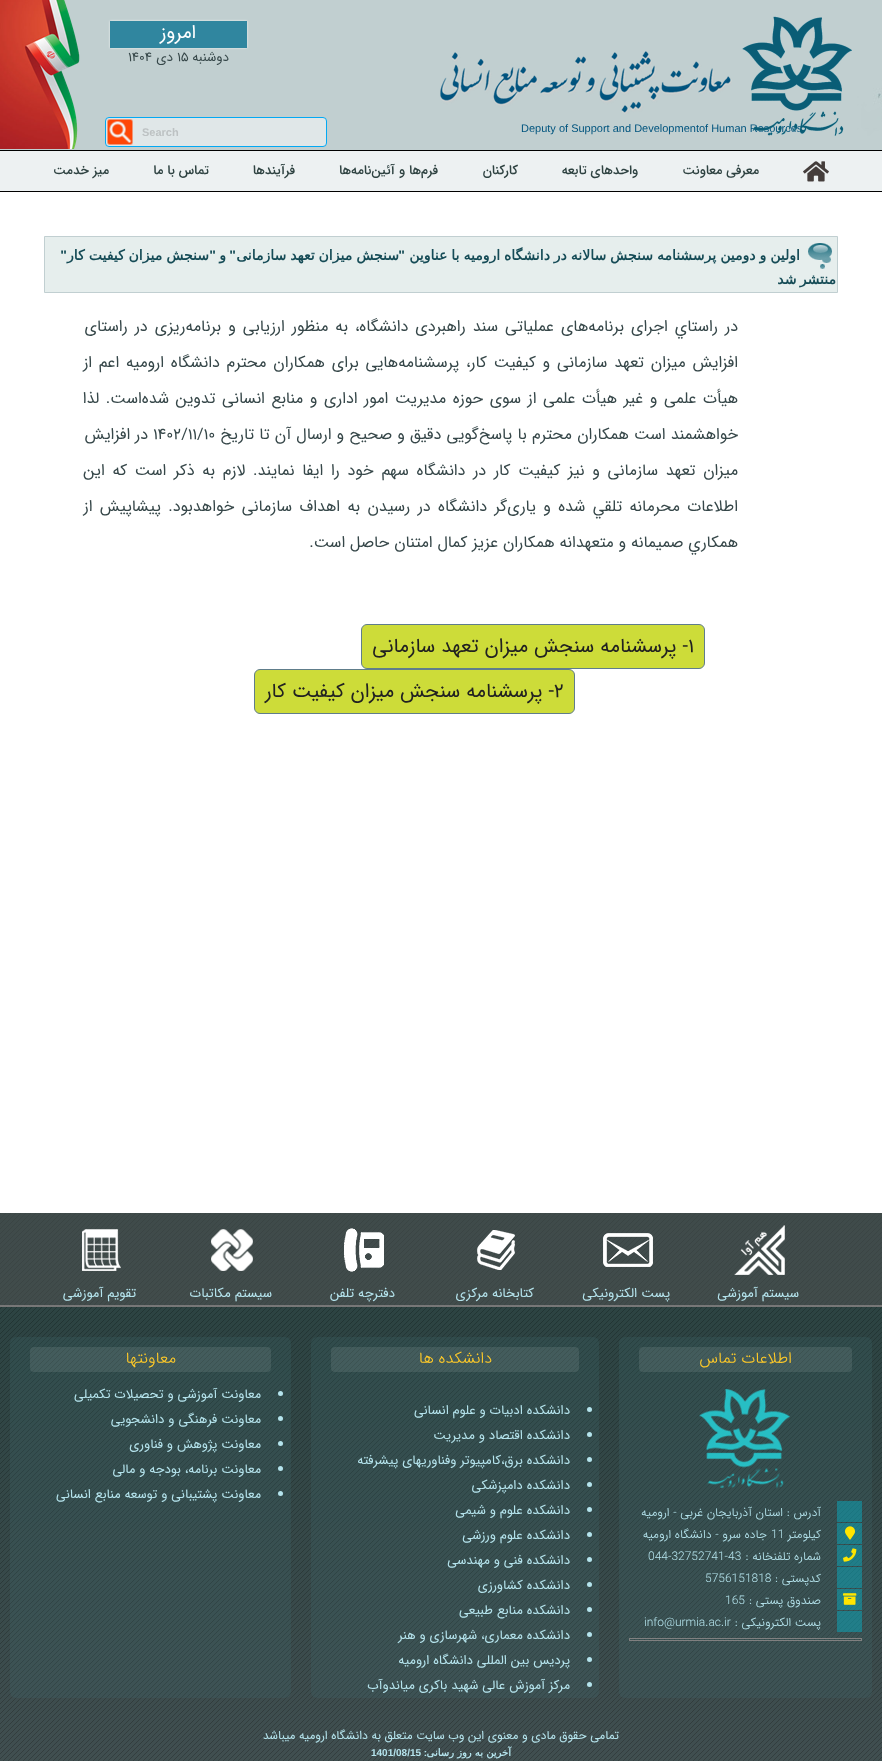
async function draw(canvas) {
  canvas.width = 882;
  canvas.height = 1761;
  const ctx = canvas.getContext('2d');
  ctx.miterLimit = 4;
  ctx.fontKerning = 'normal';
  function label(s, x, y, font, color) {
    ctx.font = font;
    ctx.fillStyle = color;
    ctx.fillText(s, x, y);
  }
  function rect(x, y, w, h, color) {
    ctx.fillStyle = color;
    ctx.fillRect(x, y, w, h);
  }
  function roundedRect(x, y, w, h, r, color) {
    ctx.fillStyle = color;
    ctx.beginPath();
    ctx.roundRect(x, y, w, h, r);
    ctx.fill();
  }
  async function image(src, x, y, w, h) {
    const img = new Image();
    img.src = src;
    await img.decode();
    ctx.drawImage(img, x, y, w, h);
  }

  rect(0, 0, 882, 1761, '#fff');
  await image('assets/img1.png', 0, 0, 882, 150);
  await image('assets/img2.png', 440, 51, 292, 63);
  await image('assets/img3.png', 0, 0, 80, 149);
  label('Deputy of Support and Developmentof Human Resources', 521, 132, '11px Liberation Sans', '#01547e');
  await image('assets/img4.png', 742, 16, 110, 120);
  ctx.fillStyle = '#ffffffcc';
  ctx.filter = 'blur(1px)';
  ctx.beginPath();
  ctx.rect(110, 21, 137, 27);
  ctx.fill();
  ctx.filter = 'none';
  rect(110, 21, 137, 27, '#30869f');
  ctx.direction = 'rtl';
  label('امروز', 196, 38, '19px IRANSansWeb', '#fff');
  label('دوشنبه', 229, 61, '13.25px IRANSansWeb', '#364749');
  ctx.direction = 'ltr';
  label('۱۵', 177, 61, '13.25px IRANSansWeb', '#364749');
  ctx.direction = 'rtl';
  label('دی', 173, 61, '13.25px IRANSansWeb', '#364749');
  ctx.direction = 'ltr';
  label('۱۴۰۴', 128, 61, '13.25px IRANSansWeb', '#364749');
  ctx.fillStyle = '#e0e7e8';
  ctx.beginPath();
  ctx.roundRect(105.5, 117.5, 221, 29, 3.5);
  ctx.fill();
  ctx.strokeStyle = '#03a9f4';
  ctx.stroke();
  label('Search', 142, 136, 'bold 11px Liberation Sans', '#bdc2c3');
  await image('assets/img5.png', 107, 119, 26, 26);
  rect(0, 151, 882, 40, '#edf1f2');
  rect(0, 150, 882, 1, '#000');
  rect(0, 191, 882, 1, '#000');
  await image('assets/img6.png', 803, 161, 26, 21);
  ctx.direction = 'rtl';
  label('معرفی معاونت', 759, 174, '500 13px IRANSansWeb', '#2e4241');
  label('واحدهای تابعه', 638, 174, '500 13px IRANSansWeb', '#2e4241');
  label('کارکنان', 518, 174, '500 13px IRANSansWeb', '#2e4241');
  label('فرم‌ها و آئین‌نامه‌ها', 438, 174, '500 13px IRANSansWeb', '#2e4241');
  label('فرآیندها', 295, 174, '500 13px IRANSansWeb', '#2e4241');
  label('تماس با ما', 209, 174, '500 13px IRANSansWeb', '#2e4241');
  label('میز خدمت', 109, 174, '500 13px IRANSansWeb', '#2e4241');
  ctx.fillStyle = '#e6eeed';
  ctx.beginPath();
  ctx.rect(44.5, 236.5, 793, 56);
  ctx.fill();
  ctx.strokeStyle = '#c1cfd1';
  ctx.stroke();
  await image('assets/img7.png', 808, 243, 24, 26);
  ctx.wordSpacing = '-0.5px';
  label('اولین و دومین پرسشنامه سنجش سالانه در دانشگاه ارومیه با عناوین', 800, 260, 'bold 14px DejaVu Sans', '#154b56');
  label('سنجش میزان تعهد سازمانی', 399, 260, 'bold 14px DejaVu Sans', '#154b56');
  ctx.wordSpacing = '0px';
  label('"', 405, 260, 'bold 14px Liberation Sans', '#154b56');
  label('"', 236, 260, 'bold 14px Liberation Sans', '#154b56');
  ctx.wordSpacing = '-0.5px';
  label('سنجش میزان کیفیت کار', 209, 260, 'bold 14px DejaVu Sans', '#154b56');
  ctx.wordSpacing = '0px';
  label('"', 216, 260, 'bold 14px Liberation Sans', '#154b56');
  label('"', 67, 260, 'bold 14px Liberation Sans', '#154b56');
  label('و', 226, 260, 'bold 14px DejaVu Sans', '#154b56');
  ctx.wordSpacing = '-1px';
  label('منتشر شد', 836, 284, 'bold 14px DejaVu Sans', '#154b56');
  ctx.wordSpacing = '2.25px';
  label('در راستاي اجرای برنامه‌های عملیاتی سند راهبردی دانشگاه، به منظور ارزیابی و برنامه‌ریزی در راستای', 738, 331, '16px IRANSansWeb', '#364749');
  ctx.wordSpacing = '2px';
  label('افزایش میزان تعهد سازمانی و کیفیت کار، پرسشنامه‌هایی برای همکاران محترم دانشگاه ارومیه اعم از', 738, 367, '16px IRANSansWeb', '#364749');
  ctx.wordSpacing = '1.75px';
  label('هیأت علمی و غیر هیأت علمی از سوی حوزه مدیریت امور اداری و منابع انسانی تدوین شده‌است. لذا', 738, 403, '16px IRANSansWeb', '#364749');
  ctx.wordSpacing = '0.4px';
  label('خواهشمند است همکاران محترم با پاسخ‌گویی دقیق و صحیح و ارسال آن تا تاریخ', 738, 439, '16px IRANSansWeb', '#364749');
  ctx.wordSpacing = '0px';
  ctx.direction = 'ltr';
  label('۱۴۰۲/۱۱/۱۰', 153, 439, '16px IRANSansWeb', '#364749');
  ctx.direction = 'rtl';
  label('در افزایش', 148, 439, '16px IRANSansWeb', '#364749');
  ctx.wordSpacing = '2.9px';
  label('میزان تعهد سازمانی و نیز کیفیت کار در دانشگاه سهم خود را ایفا نمایند. لازم به ذکر است که اين', 738, 475, '16px IRANSansWeb', '#364749');
  ctx.wordSpacing = '2.6px';
  label('اطلاعات محرمانه تلقي شده و یاری‌گر دانشگاه در رسیدن به اهداف سازمانی خواهدبود. پيشاپيش از', 738, 511, '16px IRANSansWeb', '#364749');
  ctx.wordSpacing = '0px';
  label('همکاري صميمانه و متعهدانه همکاران عزیز کمال امتنان حاصل است.', 738, 547, '16px IRANSansWeb', '#364749');
  ctx.fillStyle = '#cddc39';
  ctx.beginPath();
  ctx.roundRect(361.5, 624.5, 343, 44, 5.5);
  ctx.fill();
  ctx.strokeStyle = '#607d8b';
  ctx.stroke();
  ctx.direction = 'ltr';
  label('۱', 688, 652, '20px IRANSansWeb', '#212121');
  ctx.direction = 'rtl';
  label('- پرسشنامه سنجش میزان تعهد سازمانی', 688, 652, '20px IRANSansWeb', '#212121');
  ctx.fillStyle = '#cddc39';
  ctx.beginPath();
  ctx.roundRect(254.5, 669.5, 320, 44, 5.5);
  ctx.fill();
  ctx.stroke();
  ctx.direction = 'ltr';
  label('۲', 554, 697, '20px IRANSansWeb', '#212121');
  ctx.direction = 'rtl';
  label('- پرسشنامه سنجش میزان کیفیت کار', 554, 697, '20px IRANSansWeb', '#212121');
  await image('assets/img8.png', 0, 1213, 882, 548);
  rect(0, 1213, 882, 92, '#55555585');
  rect(0, 1305, 882, 2, '#777');
  await image('assets/img9.png', 734, 1225, 51, 50);
  label('سیستم آموزشی', 799, 1297, '13.25px IRANSansWeb', '#b5e4ed');
  await image('assets/img10.png', 603, 1233, 50, 34);
  label('پست الکترونیکی', 670, 1297, '13.25px IRANSansWeb', '#b5e4ed');
  await image('assets/img11.png', 477, 1230, 38, 40);
  label('کتابخانه مرکزی', 534, 1297, '13.25px IRANSansWeb', '#b5e4ed');
  await image('assets/img12.png', 344, 1228, 40, 44);
  label('دفترچه تلفن', 395, 1297, '13.25px IRANSansWeb', '#b5e4ed');
  await image('assets/img13.png', 211, 1229, 42, 42);
  label('سیستم مکاتبات', 272, 1297, '13.25px IRANSansWeb', '#b5e4ed');
  await image('assets/img14.png', 82, 1229, 39, 42);
  label('تقویم آموزشی', 136, 1297, '13.25px IRANSansWeb', '#b5e4ed');
  roundedRect(619, 1337, 253, 361, 6, '#41707533');
  roundedRect(639, 1347, 213, 25, 4, '#ffffff17');
  label('اطلاعات تماس', 792, 1363, '300 16px IRANSansWeb', '#ffca28');
  await image('assets/img15.png', 699, 1389, 91, 100);
  rect(837, 1501, 25, 21, '#00bcd46b');
  label('آدرس : استان آذربایجان غربی - ارومیه', 821, 1516, '300 12px IRANSansWeb', '#b5e4ed');
  rect(837, 1523, 25, 21, '#00bcd46b');
  await image('assets/img16.png', 845, 1526, 10, 14);
  label('کیلومتر', 821, 1538, '300 12px IRANSansWeb', '#b5e4ed');
  ctx.direction = 'ltr';
  label('11', 771, 1538, '300 12px IRANSansWeb', '#b5e4ed');
  ctx.direction = 'rtl';
  label('جاده سرو - دانشگاه ارومیه', 767, 1538, '300 12px IRANSansWeb', '#b5e4ed');
  rect(837, 1545, 25, 21, '#00bcd46b');
  await image('assets/img17.png', 843, 1548, 14, 14);
  label('شماره تلفنخانه :', 821, 1560, '300 12px IRANSansWeb', '#b5e4ed');
  ctx.direction = 'ltr';
  label('044-32752741-43', 648, 1560, '300 12px IRANSansWeb', '#b5e4ed');
  rect(837, 1567, 25, 21, '#00bcd46b');
  ctx.direction = 'rtl';
  label('کدپستی :', 821, 1582, '300 12px IRANSansWeb', '#b5e4ed');
  ctx.direction = 'ltr';
  label('5756151818', 705, 1582, '300 12px IRANSansWeb', '#b5e4ed');
  rect(837, 1589, 25, 21, '#00bcd46b');
  await image('assets/img18.png', 843, 1593, 14, 12);
  ctx.direction = 'rtl';
  label('صندوق پستی :', 821, 1604, '300 12px IRANSansWeb', '#b5e4ed');
  ctx.direction = 'ltr';
  label('165', 725, 1604, '300 12px IRANSansWeb', '#b5e4ed');
  rect(837, 1611, 25, 21, '#00bcd46b');
  ctx.direction = 'rtl';
  label('پست الکترونیکی :', 821, 1626, '300 12px IRANSansWeb', '#b5e4ed');
  ctx.direction = 'ltr';
  label('info@urmia.ac.ir', 644, 1626, '300 12px IRANSansWeb', '#b5e4ed');
  ctx.strokeStyle = '#808080';
  ctx.strokeRect(629.5, 1638.5, 232, 2);
  roundedRect(311, 1337, 288, 361, 6, '#41707533');
  roundedRect(331, 1347, 248, 25, 4, '#ffffff17');
  ctx.direction = 'rtl';
  label('دانشکده ها', 492, 1363, '300 16px IRANSansWeb', '#ffca28');
  ctx.fillStyle = '#b5e4ed';
  ctx.beginPath();
  ctx.arc(589.5, 1409.5, 2.5, 0, 2 * Math.PI);
  ctx.fill();
  label('دانشکده ادبیات و علوم انسانی', 570, 1414, '13px IRANSansWeb', '#b5e4ed');
  ctx.beginPath();
  ctx.arc(589.5, 1434.5, 2.5, 0, 2 * Math.PI);
  ctx.fill();
  label('دانشکده اقتصاد و مدیریت', 570, 1439, '13px IRANSansWeb', '#b5e4ed');
  ctx.beginPath();
  ctx.arc(589.5, 1459.5, 2.5, 0, 2 * Math.PI);
  ctx.fill();
  label('دانشکده برق،کامپیوتر وفناوریهای پیشرفته', 570, 1464, '13px IRANSansWeb', '#b5e4ed');
  ctx.beginPath();
  ctx.arc(589.5, 1484.5, 2.5, 0, 2 * Math.PI);
  ctx.fill();
  label('دانشکده دامپزشکی', 570, 1489, '13px IRANSansWeb', '#b5e4ed');
  ctx.beginPath();
  ctx.arc(589.5, 1509.5, 2.5, 0, 2 * Math.PI);
  ctx.fill();
  label('دانشکده علوم و شیمی', 570, 1514, '13px IRANSansWeb', '#b5e4ed');
  ctx.beginPath();
  ctx.arc(589.5, 1534.5, 2.5, 0, 2 * Math.PI);
  ctx.fill();
  label('دانشکده علوم ورزشی', 570, 1539, '13px IRANSansWeb', '#b5e4ed');
  ctx.beginPath();
  ctx.arc(589.5, 1559.5, 2.5, 0, 2 * Math.PI);
  ctx.fill();
  label('دانشکده فنی و مهندسی', 570, 1564, '13px IRANSansWeb', '#b5e4ed');
  ctx.beginPath();
  ctx.arc(589.5, 1584.5, 2.5, 0, 2 * Math.PI);
  ctx.fill();
  label('دانشکده کشاورزی', 570, 1589, '13px IRANSansWeb', '#b5e4ed');
  ctx.beginPath();
  ctx.arc(589.5, 1609.5, 2.5, 0, 2 * Math.PI);
  ctx.fill();
  label('دانشکده منابع طبیعی', 570, 1614, '13px IRANSansWeb', '#b5e4ed');
  ctx.beginPath();
  ctx.arc(589.5, 1634.5, 2.5, 0, 2 * Math.PI);
  ctx.fill();
  label('دانشکده معماری، شهرسازی و هنر', 570, 1639, '13px IRANSansWeb', '#b5e4ed');
  ctx.beginPath();
  ctx.arc(589.5, 1659.5, 2.5, 0, 2 * Math.PI);
  ctx.fill();
  label('پردیس بین المللی دانشگاه ارومیه', 570, 1664, '13px IRANSansWeb', '#b5e4ed');
  ctx.beginPath();
  ctx.arc(589.5, 1684.5, 2.5, 0, 2 * Math.PI);
  ctx.fill();
  label('مرکز آموزش عالی شهید باکری میاندوآب', 570, 1689, '13px IRANSansWeb', '#b5e4ed');
  roundedRect(10, 1337, 281, 361, 6, '#41707533');
  roundedRect(30, 1347, 241, 25, 4, '#ffffff17');
  label('معاونتها', 176, 1363, '300 16px IRANSansWeb', '#ffca28');
  ctx.fillStyle = '#b5e4ed';
  ctx.beginPath();
  ctx.arc(280.5, 1393.5, 2.5, 0, 2 * Math.PI);
  ctx.fill();
  label('معاونت آموزشی و تحصیلات تکمیلی', 261, 1398, '13px IRANSansWeb', '#b5e4ed');
  ctx.beginPath();
  ctx.arc(280.5, 1418.5, 2.5, 0, 2 * Math.PI);
  ctx.fill();
  label('معاونت فرهنگی و دانشجویی', 261, 1423, '13px IRANSansWeb', '#b5e4ed');
  ctx.beginPath();
  ctx.arc(280.5, 1443.5, 2.5, 0, 2 * Math.PI);
  ctx.fill();
  label('معاونت پژوهش و فناوری', 261, 1448, '13px IRANSansWeb', '#b5e4ed');
  ctx.beginPath();
  ctx.arc(280.5, 1468.5, 2.5, 0, 2 * Math.PI);
  ctx.fill();
  label('معاونت برنامه، بودجه و مالی', 261, 1473, '13px IRANSansWeb', '#b5e4ed');
  ctx.beginPath();
  ctx.arc(280.5, 1493.5, 2.5, 0, 2 * Math.PI);
  ctx.fill();
  label('معاونت پشتیبانی و توسعه منابع انسانی', 261, 1498, '13px IRANSansWeb', '#b5e4ed');
  label('تمامی حقوق مادی و معنوی این وب سایت متعلق به دانشگاه ارومیه میباشد', 619, 1739, '12px IRANSansWeb', '#b5e4ed');
  label('آخرین به روز رسانی', 511, 1756, 'bold 10px DejaVu Sans', '#b5e4ed');
  label(':', 427, 1756, 'bold 10px Liberation Sans', '#b5e4ed');
  ctx.direction = 'ltr';
  label('1401/08/15', 371, 1756, 'bold 10px Liberation Sans', '#b5e4ed');
}

draw(document.querySelector('canvas'));
